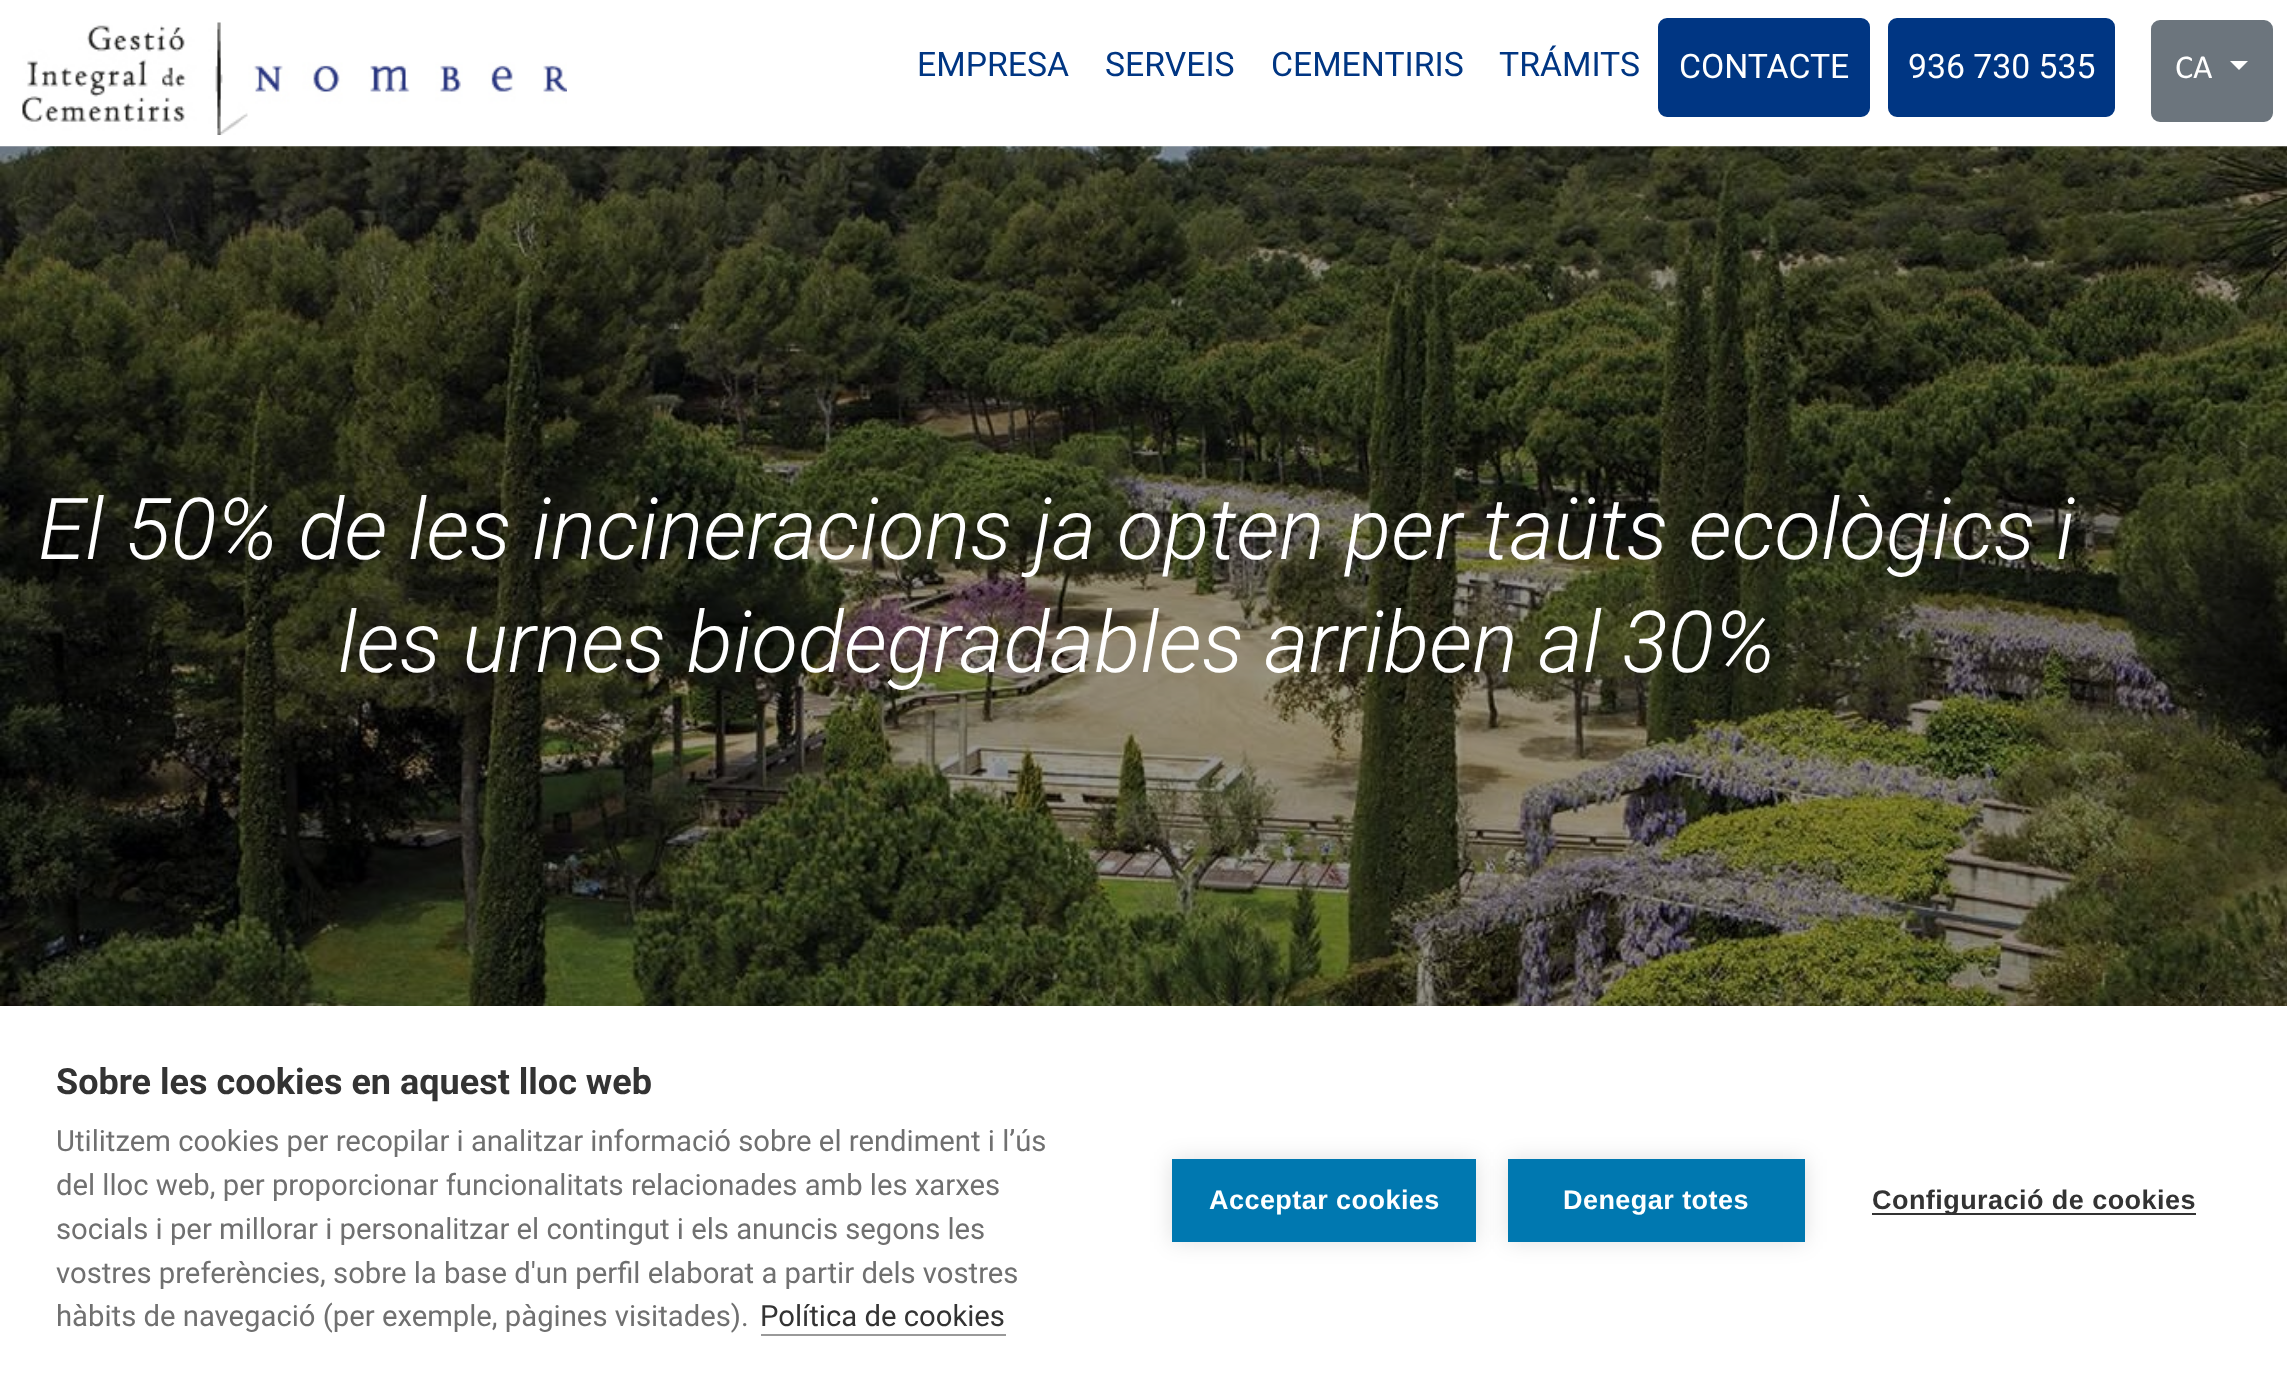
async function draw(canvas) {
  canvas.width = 2287;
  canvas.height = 1395;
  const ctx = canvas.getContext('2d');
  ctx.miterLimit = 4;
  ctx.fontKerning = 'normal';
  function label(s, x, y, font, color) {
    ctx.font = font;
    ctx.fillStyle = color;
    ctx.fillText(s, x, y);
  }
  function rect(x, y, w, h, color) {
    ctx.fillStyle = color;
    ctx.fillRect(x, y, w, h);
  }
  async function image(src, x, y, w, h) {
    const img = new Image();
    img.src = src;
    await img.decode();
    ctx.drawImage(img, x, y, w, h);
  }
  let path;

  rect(0, 0, 2287, 1395, '#fff');
  await image('assets/img1.png', 22, 22, 545, 113);
  label('EMPRESA', 917, 76, '33.75px Roboto', '#003683');
  label('SERVEIS', 1105, 76, '33.75px Roboto', '#003683');
  label('CEMENTIRIS', 1271, 76, '33.75px Roboto', '#003683');
  label('TRÁMITS', 1499, 76, '33.75px Roboto', '#003683');
  ctx.beginPath();
  ctx.roundRect(1659, 19, 210, 97, 8);
  ctx.fill();
  ctx.strokeStyle = '#003683';
  ctx.lineWidth = 2;
  ctx.stroke();
  label('CONTACTE', 1679, 78, '33.75px Roboto', '#fff');
  ctx.fillStyle = '#003683';
  ctx.beginPath();
  ctx.roundRect(1889, 19, 225, 97, 8);
  ctx.fill();
  ctx.stroke();
  label('936 730 535', 1908, 78, '33.75px Roboto', '#fff');
  ctx.fillStyle = '#6c757d';
  ctx.beginPath();
  ctx.roundRect(2152, 21, 120, 100, 8);
  ctx.fill();
  ctx.strokeStyle = '#6c757d';
  ctx.stroke();
  label('CA', 2175, 78, '33.75px Calibri', '#fff');
  path = new Path2D('M2230 61H2248L2239 70Z');
  ctx.fill(path);
  await image('assets/img2.png', 0, 146, 2287, 860);
  label('El 50% de les incineracions ja opten per taüts ecològics i', 38, 559, 'italic 300 85.5px Roboto', '#fff');
  label('les urnes biodegradables arriben al 30%', 338, 672, 'italic 300 85.5px Roboto', '#fff');
  ctx.fillStyle = '#0000001a';
  ctx.filter = 'blur(22.5px)';
  ctx.beginPath();
  ctx.rect(0, 1006, 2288, 389);
  ctx.fill();
  ctx.filter = 'none';
  rect(0, 1006, 2287, 389, '#fff');
  label('Sobre les cookies en aquest lloc web', 56, 1094, 'bold 36px Roboto', '#333');
  label('Utilitzem cookies per recopilar i analitzar informació sobre el rendiment i l’ús', 56, 1151, '29.25px Roboto', '#707070');
  label('del lloc web, per proporcionar funcionalitats relacionades amb les xarxes', 56, 1195, '29.25px Roboto', '#707070');
  label('socials i per millorar i personalitzar el contingut i els anuncis segons les', 56, 1239, '29.25px Roboto', '#707070');
  label('vostres preferències, sobre la base d\'un perfil elaborat a partir dels vostres', 56, 1283, '29.25px Roboto', '#707070');
  label('hàbits de navegació (per exemple, pàgines visitades).', 56, 1326, '29.25px Roboto', '#707070');
  label('Política de cookies', 760, 1326, '29.25px Roboto', '#333');
  rect(761, 1334, 245, 2, '#999');
  ctx.fillStyle = '#0000001f';
  ctx.filter = 'blur(11px)';
  ctx.beginPath();
  ctx.rect(1172, 1159, 304, 83);
  ctx.fill();
  ctx.filter = 'none';
  rect(1172, 1159, 304, 83, '#0078b0');
  ctx.letterSpacing = '0.45px';
  label('Acceptar cookies', 1209, 1209, 'bold 27px Liberation Sans', '#fff');
  ctx.fillStyle = '#0000001f';
  ctx.filter = 'blur(11px)';
  ctx.beginPath();
  ctx.rect(1508, 1159, 297, 83);
  ctx.fill();
  ctx.filter = 'none';
  rect(1508, 1159, 297, 83, '#0078b0');
  label('Denegar totes', 1563, 1209, 'bold 27px Liberation Sans', '#fff');
  rect(1872, 1213, 324, 2, '#333');
  label('Configuració de cookies', 1872, 1209, 'bold 27px Liberation Sans', '#333');
}

draw(document.querySelector('canvas'));
